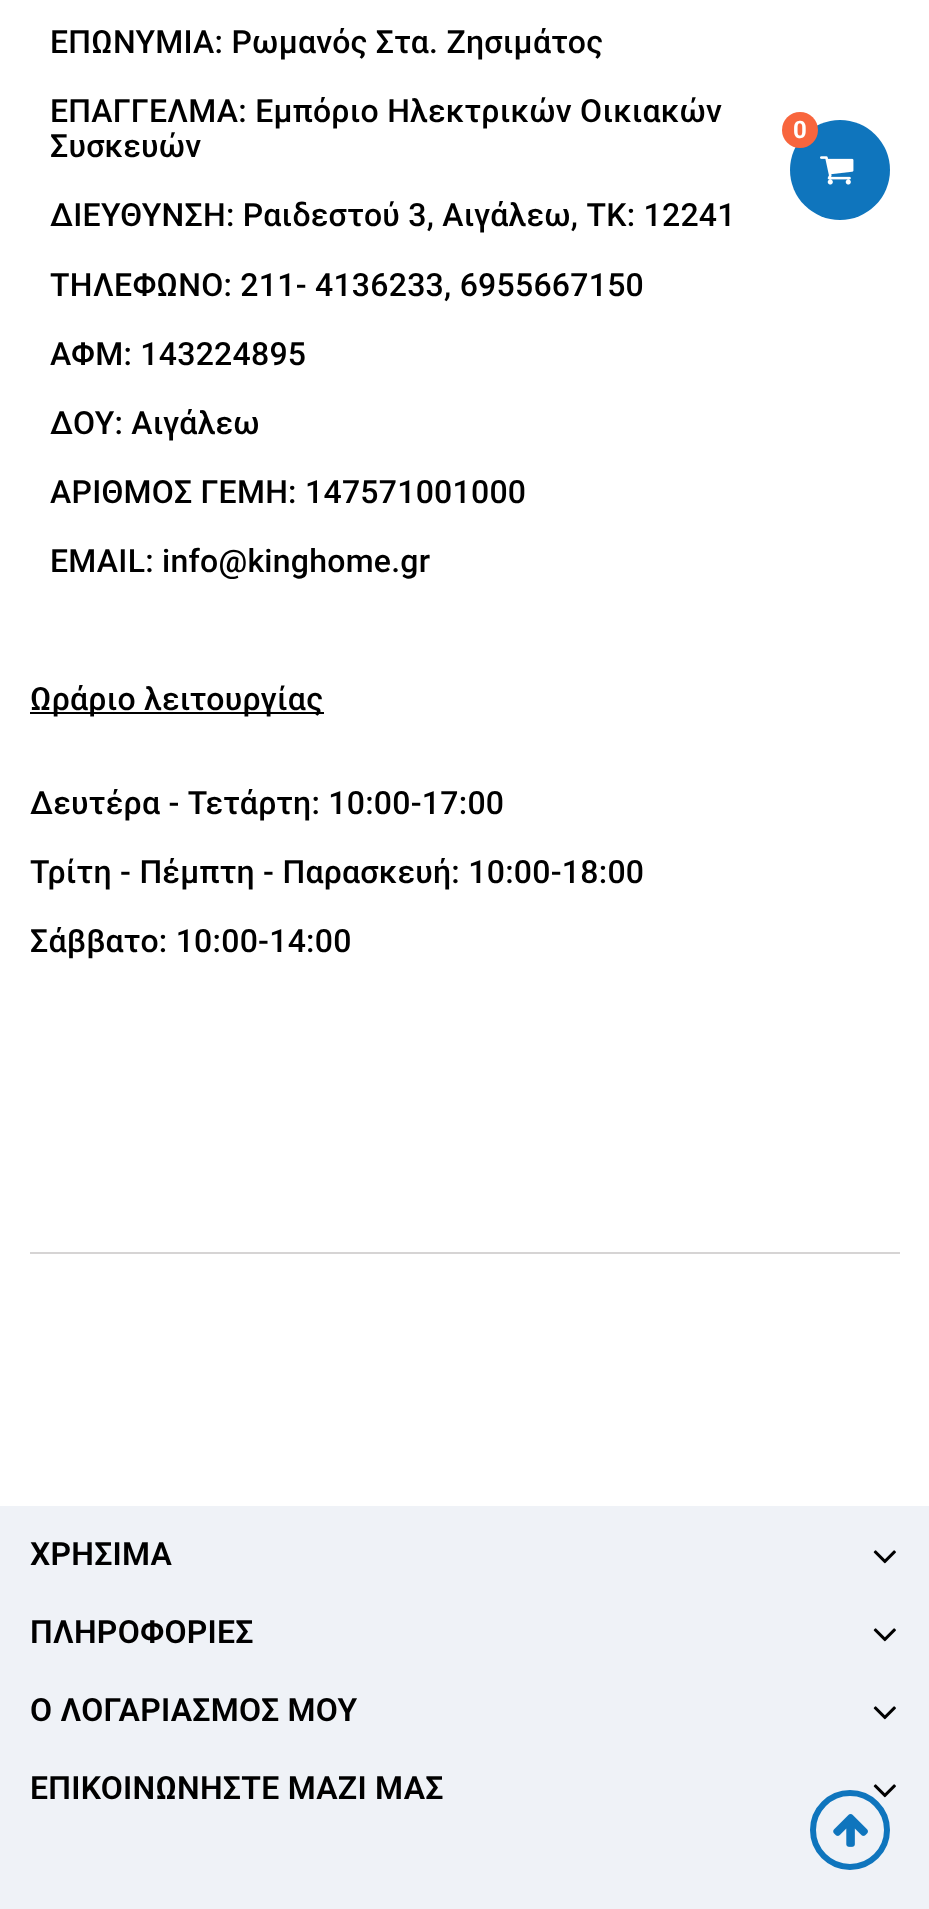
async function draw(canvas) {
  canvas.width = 929;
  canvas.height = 1909;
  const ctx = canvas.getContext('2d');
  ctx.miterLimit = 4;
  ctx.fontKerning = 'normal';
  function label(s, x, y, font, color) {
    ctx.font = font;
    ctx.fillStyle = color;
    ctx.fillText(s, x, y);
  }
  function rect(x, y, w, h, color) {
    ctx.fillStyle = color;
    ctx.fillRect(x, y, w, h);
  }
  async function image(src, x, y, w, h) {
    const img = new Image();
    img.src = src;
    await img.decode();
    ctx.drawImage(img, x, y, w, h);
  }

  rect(0, 0, 929, 1909, '#fff');
  ctx.letterSpacing = '0.25px';
  label('ΕΠΩΝΥΜΙΑ: Ρωμανός Στα. Ζησιμάτος', 50, 53, '500 32px Roboto', '#000');
  label('ΕΠΑΓΓΕΛΜΑ: Εμπόριο Ηλεκτρικών Οικιακών', 50, 122, '500 32px Roboto', '#000');
  label('Συσκευών', 50, 157, '500 32px Roboto', '#000');
  label('ΔΙΕΥΘΥΝΣΗ: Ραιδεστού 3, Αιγάλεω, ΤΚ: 12241', 50, 226, '500 32px Roboto', '#000');
  label('ΤΗΛΕΦΩΝΟ: 211- 4136233, 6955667150', 50, 296, '500 32px Roboto', '#000');
  label('ΑΦΜ: 143224895', 50, 365, '500 32px Roboto', '#000');
  label('ΔΟΥ: Αιγάλεω', 50, 434, '500 32px Roboto', '#000');
  label('ΑΡΙΘΜΟΣ ΓΕΜΗ: 147571001000', 50, 503, '500 32px Roboto', '#000');
  label('EMAIL: info@kinghome.gr', 50, 572, '500 32px Roboto', '#000');
  rect(30, 712, 294, 2, '#000');
  label('Ωράριο λειτουργίας', 30, 710, '500 32px Roboto', '#000');
  label('Δευτέρα - Τετάρτη: 10:00-17:00', 30, 814, '500 32px Roboto', '#000');
  label('Τρίτη - Πέμπτη - Παρασκευή: 10:00-18:00', 30, 883, '500 32px Roboto', '#000');
  label('Σάββατο: 10:00-14:00', 30, 952, '500 32px Roboto', '#000');
  rect(30, 1252, 870, 2, '#d6d4d4');
  ctx.fillStyle = '#0f75bd';
  ctx.beginPath();
  ctx.arc(840, 170, 50, 0, 2 * Math.PI);
  ctx.fill();
  ctx.fillStyle = '#f8653d';
  ctx.beginPath();
  ctx.arc(800, 130, 18, 0, 2 * Math.PI);
  ctx.fill();
  label('0', 793, 138, 'bold 24px Roboto', '#fff');
  await image('assets/img1.png', 820, 156, 34, 29);
  rect(0, 1506, 929, 403, '#eff2f7');
  label('ΧΡΗΣΙΜΑ', 30, 1565, '600 32px Roboto', '#000');
  await image('assets/img2.png', 873, 1550, 23, 14);
  label('ΠΛΗΡΟΦΟΡΙΕΣ', 30, 1643, '600 32px Roboto', '#000');
  await image('assets/img2.png', 873, 1628, 23, 14);
  label('Ο ΛΟΓΑΡΙΑΣΜΟΣ ΜΟΥ', 30, 1721, '600 32px Roboto', '#000');
  await image('assets/img2.png', 873, 1706, 23, 14);
  label('ΕΠΙΚΟΙΝΩΝΗΣΤΕ ΜΑΖΙ ΜΑΣ', 30, 1799, '600 32px Roboto', '#000');
  await image('assets/img2.png', 873, 1784, 23, 14);
  ctx.beginPath();
  ctx.arc(850, 1830, 37, 0, 2 * Math.PI);
  ctx.strokeStyle = '#0f75bd';
  ctx.lineWidth = 6;
  ctx.stroke();
  await image('assets/img3.png', 833, 1814, 35, 33);
}

draw(document.querySelector('canvas'));
